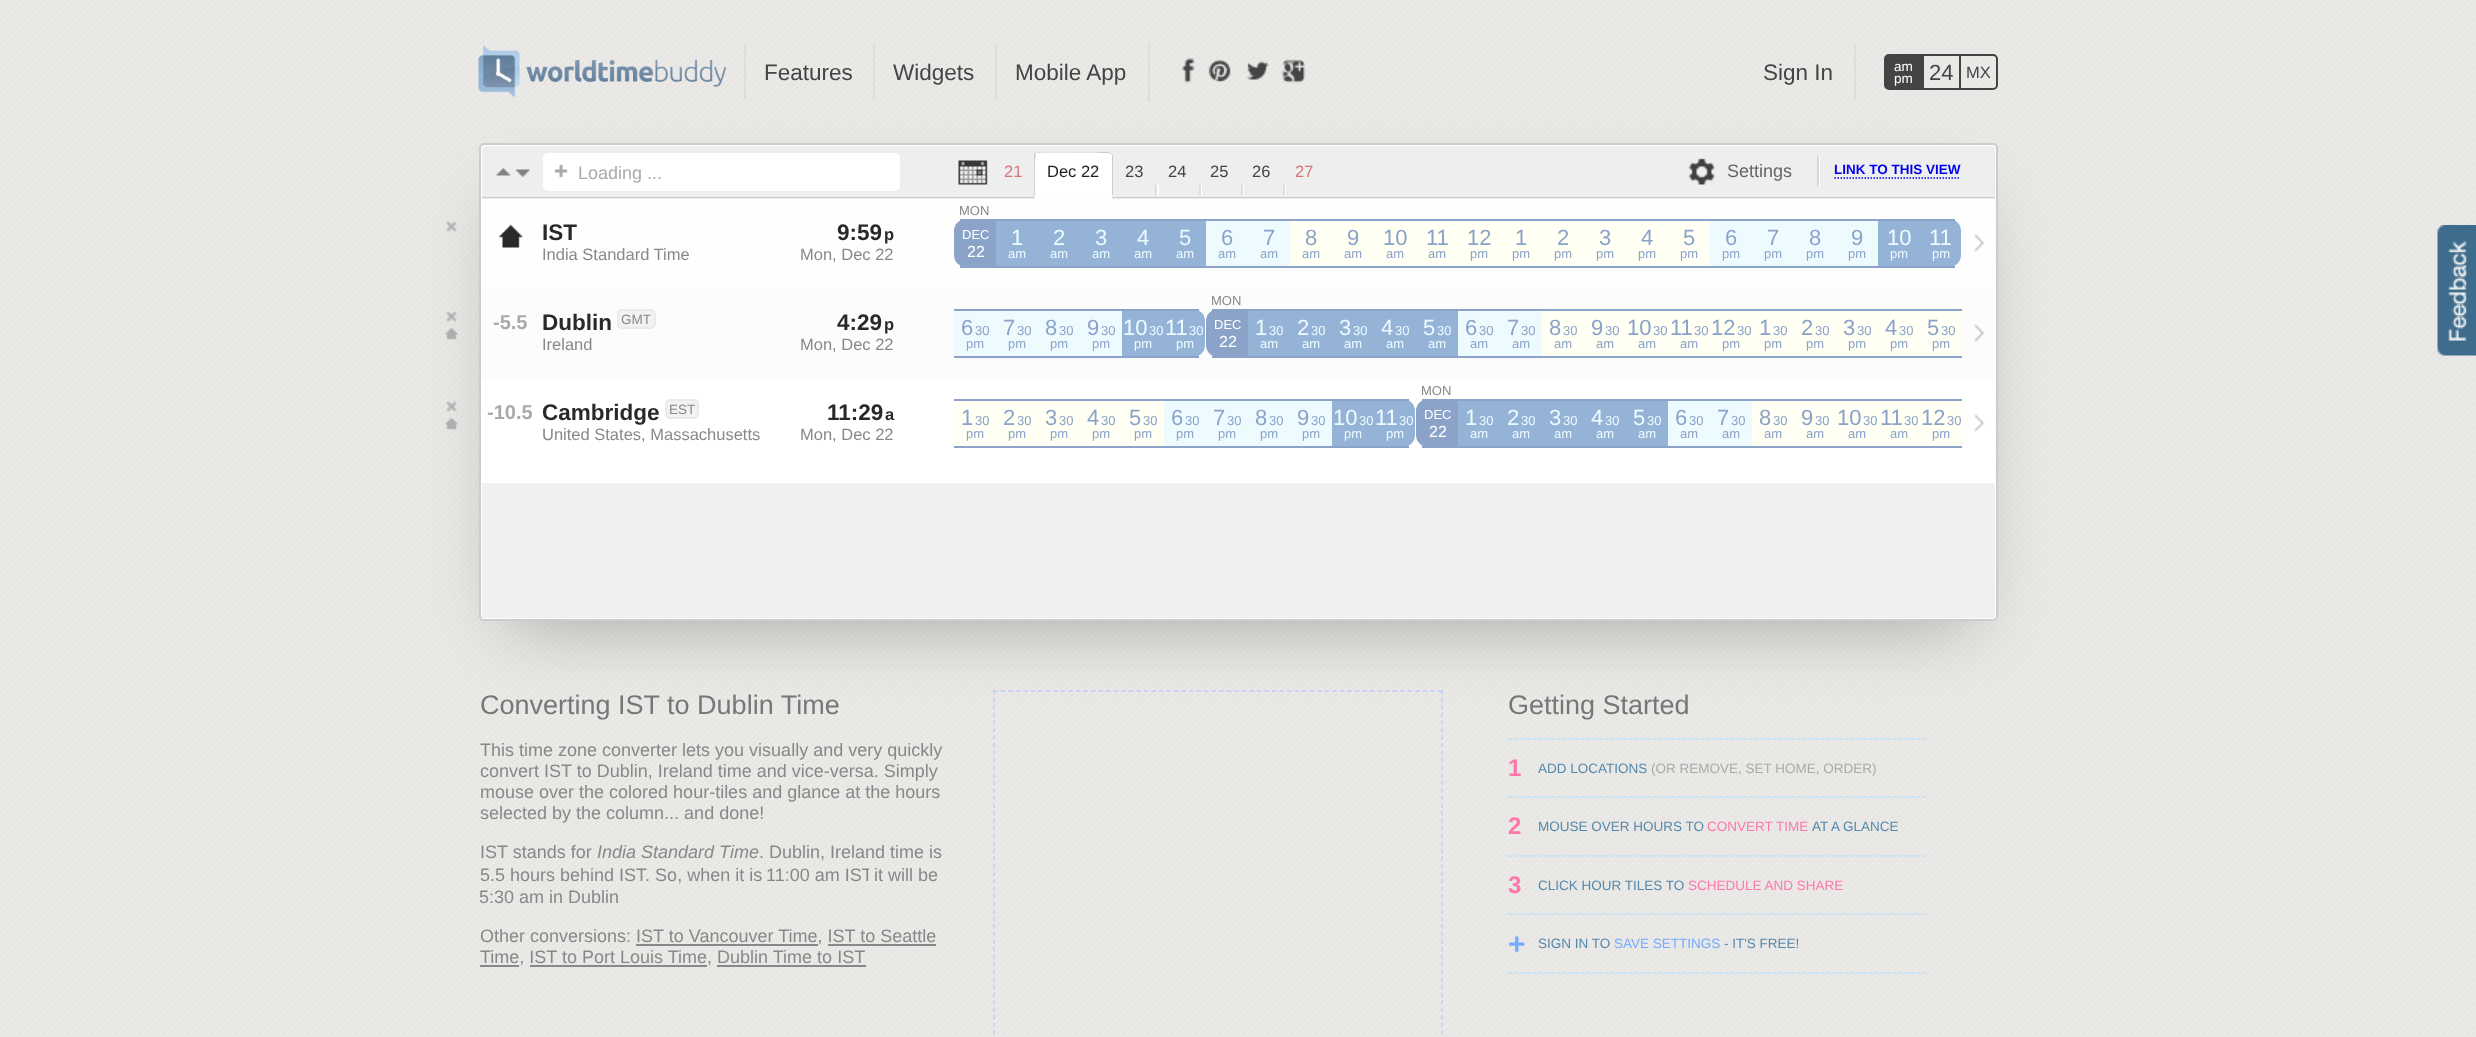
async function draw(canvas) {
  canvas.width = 2476;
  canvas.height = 1037;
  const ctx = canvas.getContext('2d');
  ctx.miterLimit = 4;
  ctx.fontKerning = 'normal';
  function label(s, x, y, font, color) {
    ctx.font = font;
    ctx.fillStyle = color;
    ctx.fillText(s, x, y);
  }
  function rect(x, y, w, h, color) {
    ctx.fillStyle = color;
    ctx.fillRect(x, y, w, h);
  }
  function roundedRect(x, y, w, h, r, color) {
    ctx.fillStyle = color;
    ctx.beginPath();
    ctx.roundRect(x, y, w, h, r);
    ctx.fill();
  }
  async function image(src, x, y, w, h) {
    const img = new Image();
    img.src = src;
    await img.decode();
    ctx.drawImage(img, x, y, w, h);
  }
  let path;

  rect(0, 0, 2476, 1037, '#e8e6e3');
  await image('assets/img1.png', 0, 0, 2476, 1037);
  path = new Path2D('M993 691H1443');
  ctx.strokeStyle = '#c0d0fa';
  ctx.lineWidth = 1.5;
  ctx.setLineDash([4.5, 3.04]);
  ctx.stroke(path);
  path = new Path2D('M1442 690V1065');
  ctx.setLineDash([4.5, 3.06]);
  ctx.stroke(path);
  path = new Path2D('M994 690V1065');
  ctx.stroke(path);
  ctx.fillStyle = '#0000004d';
  ctx.filter = 'blur(37.5px)';
  ctx.beginPath();
  ctx.rect(509, 203, 1459, 418);
  ctx.fill();
  ctx.filter = 'none';
  await image('assets/img2.png', 478, 45, 248, 53);
  rect(744, 44, 2, 55, '#ddd');
  label('Features', 764, 80, '22.5px Liberation Sans', '#444');
  rect(873, 44, 2, 55, '#ddd');
  label('Widgets', 893, 80, '22.5px Liberation Sans', '#444');
  rect(995, 44, 2, 55, '#ddd');
  label('Mobile App', 1015, 80, '22.5px Liberation Sans', '#444');
  rect(1148, 44, 2, 57, '#ddd');
  await image('assets/img3.png', 1181, 58, 125, 25);
  label('Sign In', 1763, 80, '22.5px Liberation Sans', '#444');
  rect(1854, 44, 2, 55, '#ddd');
  ctx.beginPath();
  ctx.roundRect(1885, 55, 112, 34, 4);
  ctx.strokeStyle = '#444';
  ctx.lineWidth = 2;
  ctx.setLineDash([]);
  ctx.stroke();
  rect(1886, 56, 36, 32, '#444');
  label('am', 1894, 71, '13.5px Liberation Sans', '#fff');
  label('pm', 1894, 83, '13.5px Liberation Sans', '#fff');
  rect(1922, 56, 2, 33, '#444');
  label('24', 1929, 80, '22px Liberation Sans', '#444');
  rect(1959, 56, 2, 33, '#444');
  label('MX', 1966, 78, '16.5px Liberation Sans', '#444');
  ctx.fillStyle = '#fff';
  ctx.beginPath();
  ctx.roundRect(480, 144, 1517, 476, 4);
  ctx.fill();
  ctx.strokeStyle = '#ccc';
  ctx.stroke();
  ctx.fillStyle = '#eee';
  ctx.beginPath();
  ctx.roundRect(482, 146, 1513, 52, [3, 3, 0, 0]);
  ctx.fill();
  rect(482, 197, 1513, 2, '#ccc');
  await image('assets/img4.png', 496, 167, 15, 9);
  await image('assets/img5.png', 515, 169, 15, 9);
  roundedRect(543, 153, 357, 38, 5, '#fff');
  await image('assets/img6.png', 554, 164, 14, 14);
  label('Loading ...', 578, 179, '18px Liberation Sans', '#aaa');
  await image('assets/img7.png', 958, 160, 30, 25);
  label('21', 1004, 177, '16.5px Liberation Sans', '#d77576');
  ctx.fillStyle = '#fff';
  ctx.beginPath();
  ctx.roundRect(1034, 152, 79, 45, [5, 5, 0, 0]);
  ctx.fill();
  ctx.fillStyle = '#ccc';
  path = new Path2D('M1038 152L1035 153L1036 154V153C1038 152 1102 153 1108 153L1111 154V153L1108 152Z');
  ctx.fill(path);
  path = new Path2D('M1113 196V156C1113 155 1112 154 1111 153V154L1112 155V195Z');
  ctx.fill(path);
  path = new Path2D('M1035 153C1034 154 1034 155 1034 156V196L1035 195C1035 190 1034 156 1036 154Z');
  ctx.fill(path);
  label('Dec 22', 1047, 177, '16.5px Liberation Sans', '#222');
  await image('assets/img9.png', 482, 198, 1513, 181);
  rect(1035, 197, 77, 2, '#fff');
  label('23', 1125, 177, '16.5px Liberation Sans', '#444');
  label('24', 1168, 177, '16.5px Liberation Sans', '#444');
  label('25', 1210, 177, '16.5px Liberation Sans', '#444');
  label('26', 1252, 177, '16.5px Liberation Sans', '#444');
  label('27', 1295, 177, '16.5px Liberation Sans', '#d77576');
  rect(1157, 185, 2, 10, '#fff');
  rect(1155, 185, 2, 10, '#ddd');
  rect(1201, 185, 1, 10, '#fff');
  rect(1199, 185, 2, 10, '#ddd');
  rect(1243, 185, 1, 10, '#fff');
  rect(1241, 185, 2, 10, '#ddd');
  rect(1285, 185, 1, 10, '#fff');
  rect(1283, 185, 2, 10, '#ddd');
  await image('assets/img8.png', 1688, 158, 27, 27);
  label('Settings', 1727, 177, '18px Liberation Sans', '#666');
  rect(1819, 156, 1, 30, '#fff');
  rect(1817, 156, 2, 30, '#d8d8d8');
  path = new Path2D('M1834.5 178H1960.5');
  ctx.strokeStyle = '#00e';
  ctx.lineWidth = 1.5;
  ctx.setLineDash([1.5, 1.5]);
  ctx.stroke(path);
  label('LINK TO THIS VIEW', 1834, 174, 'bold 13.5px Liberation Sans', '#00e');
  await image('assets/img10.png', 446, 221, 11, 11);
  await image('assets/img11.png', 499, 224, 24, 24);
  label('IST', 542, 240, 'bold 22.5px Liberation Sans', '#292929');
  label('India Standard Time', 542, 260, '16.5px Liberation Sans', '#888');
  label('9:59', 837, 240, 'bold 22.5px Liberation Sans', '#292929');
  label('p', 884, 240, 'bold 16.5px Liberation Sans', '#292929');
  label('Mon, Dec 22', 800, 260, '16.5px Liberation Sans', '#888');
  ctx.fillStyle = '#8ba3c9';
  ctx.beginPath();
  ctx.roundRect(954, 219, 42, 48, [12, 0, 0, 12]);
  ctx.fill();
  rect(960, 219, 6, 2, '#8ba3c9');
  rect(960, 266, 960, 2, '#8ba3c9');
  label('MON', 959, 215, '13px Liberation Sans', '#888');
  label('DEC', 962, 239, '13px Liberation Sans', '#fff');
  label('22', 967, 257, '16px Liberation Sans', '#fff');
  rect(996, 221, 210, 45, '#95b3d7');
  rect(996, 219, 924, 2, '#8ba3c9');
  label('1', 1011, 245, '22px Liberation Sans', '#edfbff');
  label('am', 1008, 258, '13px Liberation Sans', '#edfbff');
  label('2', 1053, 245, '22px Liberation Sans', '#edfbff');
  label('am', 1050, 258, '13px Liberation Sans', '#edfbff');
  label('3', 1095, 245, '22px Liberation Sans', '#edfbff');
  label('am', 1092, 258, '13px Liberation Sans', '#edfbff');
  label('4', 1137, 245, '22px Liberation Sans', '#edfbff');
  label('am', 1134, 258, '13px Liberation Sans', '#edfbff');
  label('5', 1179, 245, '22px Liberation Sans', '#edfbff');
  label('am', 1176, 258, '13px Liberation Sans', '#edfbff');
  rect(1206, 221, 84, 45, '#edfbff');
  label('6', 1221, 245, '22px Liberation Sans', '#8ba3c9');
  label('am', 1218, 258, '13px Liberation Sans', '#8ba3c9');
  label('7', 1263, 245, '22px Liberation Sans', '#8ba3c9');
  label('am', 1260, 258, '13px Liberation Sans', '#8ba3c9');
  rect(1290, 221, 420, 45, '#fffff3');
  label('8', 1305, 245, '22px Liberation Sans', '#8ba3c9');
  label('am', 1302, 258, '13px Liberation Sans', '#8ba3c9');
  label('9', 1347, 245, '22px Liberation Sans', '#8ba3c9');
  label('am', 1344, 258, '13px Liberation Sans', '#8ba3c9');
  label('10', 1383, 245, '22px Liberation Sans', '#8ba3c9');
  label('am', 1386, 258, '13px Liberation Sans', '#8ba3c9');
  label('11', 1426, 245, '22px Liberation Sans', '#8ba3c9');
  label('am', 1428, 258, '13px Liberation Sans', '#8ba3c9');
  label('12', 1467, 245, '22px Liberation Sans', '#8ba3c9');
  label('pm', 1470, 258, '13px Liberation Sans', '#8ba3c9');
  label('1', 1515, 245, '22px Liberation Sans', '#8ba3c9');
  label('pm', 1512, 258, '13px Liberation Sans', '#8ba3c9');
  label('2', 1557, 245, '22px Liberation Sans', '#8ba3c9');
  label('pm', 1554, 258, '13px Liberation Sans', '#8ba3c9');
  label('3', 1599, 245, '22px Liberation Sans', '#8ba3c9');
  label('pm', 1596, 258, '13px Liberation Sans', '#8ba3c9');
  label('4', 1641, 245, '22px Liberation Sans', '#8ba3c9');
  label('pm', 1638, 258, '13px Liberation Sans', '#8ba3c9');
  label('5', 1683, 245, '22px Liberation Sans', '#8ba3c9');
  label('pm', 1680, 258, '13px Liberation Sans', '#8ba3c9');
  rect(1710, 221, 168, 45, '#edfbff');
  label('6', 1725, 245, '22px Liberation Sans', '#8ba3c9');
  label('pm', 1722, 258, '13px Liberation Sans', '#8ba3c9');
  label('7', 1767, 245, '22px Liberation Sans', '#8ba3c9');
  label('pm', 1764, 258, '13px Liberation Sans', '#8ba3c9');
  label('8', 1809, 245, '22px Liberation Sans', '#8ba3c9');
  label('pm', 1806, 258, '13px Liberation Sans', '#8ba3c9');
  label('9', 1851, 245, '22px Liberation Sans', '#8ba3c9');
  label('pm', 1848, 258, '13px Liberation Sans', '#8ba3c9');
  rect(1878, 221, 42, 45, '#95b3d7');
  label('10', 1887, 245, '22px Liberation Sans', '#edfbff');
  label('pm', 1890, 258, '13px Liberation Sans', '#edfbff');
  ctx.fillStyle = '#95b3d7';
  ctx.beginPath();
  ctx.roundRect(1920, 219, 41, 48, [0, 12, 12, 0]);
  ctx.fill();
  rect(1920, 219, 35, 2, '#8ba3c9');
  rect(1920, 266, 35, 2, '#8ba3c9');
  label('11', 1929, 245, '22px Liberation Sans', '#edfbff');
  label('pm', 1932, 258, '13px Liberation Sans', '#edfbff');
  await image('assets/img12.png', 1974, 234, 11, 198);
  await image('assets/img13.png', 446, 311, 11, 11);
  await image('assets/img14.png', 445, 328, 13, 12);
  label('-5.5', 493, 329, 'bold 20px Liberation Sans', '#aaa');
  label('Dublin', 542, 330, 'bold 22.5px Liberation Sans', '#292929');
  ctx.fillStyle = '#f2f2f2';
  ctx.beginPath();
  ctx.roundRect(618, 310, 37, 18, 4);
  ctx.fill();
  ctx.strokeStyle = '#eaeaea';
  ctx.lineWidth = 2;
  ctx.setLineDash([]);
  ctx.stroke();
  label('GMT', 621, 324, '13.5px Liberation Sans', '#888');
  label('Ireland', 542, 350, '16.5px Liberation Sans', '#888');
  label('4:29', 837, 330, 'bold 22.5px Liberation Sans', '#292929');
  label('p', 884, 330, 'bold 16.5px Liberation Sans', '#292929');
  label('Mon, Dec 22', 800, 350, '16.5px Liberation Sans', '#888');
  rect(954, 311, 168, 45, '#edfbff');
  rect(954, 309, 210, 2, '#8ba3c9');
  rect(954, 356, 210, 2, '#8ba3c9');
  label('6', 961, 335, '22px Liberation Sans', '#8ba3c9');
  label('30', 975, 335, '13px Liberation Sans', '#8ba3c9');
  label('pm', 966, 348, '13px Liberation Sans', '#8ba3c9');
  label('7', 1003, 335, '22px Liberation Sans', '#8ba3c9');
  label('30', 1017, 335, '13px Liberation Sans', '#8ba3c9');
  label('pm', 1008, 348, '13px Liberation Sans', '#8ba3c9');
  label('8', 1045, 335, '22px Liberation Sans', '#8ba3c9');
  label('30', 1059, 335, '13px Liberation Sans', '#8ba3c9');
  label('pm', 1050, 348, '13px Liberation Sans', '#8ba3c9');
  label('9', 1087, 335, '22px Liberation Sans', '#8ba3c9');
  label('30', 1101, 335, '13px Liberation Sans', '#8ba3c9');
  label('pm', 1092, 348, '13px Liberation Sans', '#8ba3c9');
  rect(1122, 311, 42, 45, '#95b3d7');
  label('10', 1123, 335, '22px Liberation Sans', '#edfbff');
  label('30', 1149, 335, '13px Liberation Sans', '#edfbff');
  label('pm', 1134, 348, '13px Liberation Sans', '#edfbff');
  ctx.fillStyle = '#95b3d7';
  ctx.beginPath();
  ctx.roundRect(1164, 309, 41, 48, [0, 12, 12, 0]);
  ctx.fill();
  rect(1164, 309, 35, 2, '#8ba3c9');
  rect(1164, 356, 35, 2, '#8ba3c9');
  label('11', 1165, 335, '22px Liberation Sans', '#edfbff');
  label('30', 1189, 335, '13px Liberation Sans', '#edfbff');
  label('pm', 1176, 348, '13px Liberation Sans', '#edfbff');
  ctx.fillStyle = '#8ba3c9';
  ctx.beginPath();
  ctx.roundRect(1206, 309, 42, 48, [12, 0, 0, 12]);
  ctx.fill();
  rect(1212, 309, 6, 2, '#8ba3c9');
  rect(1212, 356, 750, 2, '#8ba3c9');
  label('MON', 1211, 305, '13px Liberation Sans', '#888');
  label('DEC', 1214, 329, '13px Liberation Sans', '#fff');
  label('22', 1219, 347, '16px Liberation Sans', '#fff');
  rect(1248, 311, 210, 45, '#95b3d7');
  rect(1248, 309, 714, 2, '#8ba3c9');
  label('1', 1255, 335, '22px Liberation Sans', '#edfbff');
  label('30', 1269, 335, '13px Liberation Sans', '#edfbff');
  label('am', 1260, 348, '13px Liberation Sans', '#edfbff');
  label('2', 1297, 335, '22px Liberation Sans', '#edfbff');
  label('30', 1311, 335, '13px Liberation Sans', '#edfbff');
  label('am', 1302, 348, '13px Liberation Sans', '#edfbff');
  label('3', 1339, 335, '22px Liberation Sans', '#edfbff');
  label('30', 1353, 335, '13px Liberation Sans', '#edfbff');
  label('am', 1344, 348, '13px Liberation Sans', '#edfbff');
  label('4', 1381, 335, '22px Liberation Sans', '#edfbff');
  label('30', 1395, 335, '13px Liberation Sans', '#edfbff');
  label('am', 1386, 348, '13px Liberation Sans', '#edfbff');
  label('5', 1423, 335, '22px Liberation Sans', '#edfbff');
  label('30', 1437, 335, '13px Liberation Sans', '#edfbff');
  label('am', 1428, 348, '13px Liberation Sans', '#edfbff');
  rect(1458, 311, 84, 45, '#edfbff');
  label('6', 1465, 335, '22px Liberation Sans', '#8ba3c9');
  label('30', 1479, 335, '13px Liberation Sans', '#8ba3c9');
  label('am', 1470, 348, '13px Liberation Sans', '#8ba3c9');
  label('7', 1507, 335, '22px Liberation Sans', '#8ba3c9');
  label('30', 1521, 335, '13px Liberation Sans', '#8ba3c9');
  label('am', 1512, 348, '13px Liberation Sans', '#8ba3c9');
  rect(1542, 311, 420, 45, '#fffff3');
  label('8', 1549, 335, '22px Liberation Sans', '#8ba3c9');
  label('30', 1563, 335, '13px Liberation Sans', '#8ba3c9');
  label('am', 1554, 348, '13px Liberation Sans', '#8ba3c9');
  label('9', 1591, 335, '22px Liberation Sans', '#8ba3c9');
  label('30', 1605, 335, '13px Liberation Sans', '#8ba3c9');
  label('am', 1596, 348, '13px Liberation Sans', '#8ba3c9');
  label('10', 1627, 335, '22px Liberation Sans', '#8ba3c9');
  label('30', 1653, 335, '13px Liberation Sans', '#8ba3c9');
  label('am', 1638, 348, '13px Liberation Sans', '#8ba3c9');
  label('11', 1670, 335, '22px Liberation Sans', '#8ba3c9');
  label('30', 1694, 335, '13px Liberation Sans', '#8ba3c9');
  label('am', 1680, 348, '13px Liberation Sans', '#8ba3c9');
  label('12', 1711, 335, '22px Liberation Sans', '#8ba3c9');
  label('30', 1737, 335, '13px Liberation Sans', '#8ba3c9');
  label('pm', 1722, 348, '13px Liberation Sans', '#8ba3c9');
  label('1', 1759, 335, '22px Liberation Sans', '#8ba3c9');
  label('30', 1773, 335, '13px Liberation Sans', '#8ba3c9');
  label('pm', 1764, 348, '13px Liberation Sans', '#8ba3c9');
  label('2', 1801, 335, '22px Liberation Sans', '#8ba3c9');
  label('30', 1815, 335, '13px Liberation Sans', '#8ba3c9');
  label('pm', 1806, 348, '13px Liberation Sans', '#8ba3c9');
  label('3', 1843, 335, '22px Liberation Sans', '#8ba3c9');
  label('30', 1857, 335, '13px Liberation Sans', '#8ba3c9');
  label('pm', 1848, 348, '13px Liberation Sans', '#8ba3c9');
  label('4', 1885, 335, '22px Liberation Sans', '#8ba3c9');
  label('30', 1899, 335, '13px Liberation Sans', '#8ba3c9');
  label('pm', 1890, 348, '13px Liberation Sans', '#8ba3c9');
  label('5', 1927, 335, '22px Liberation Sans', '#8ba3c9');
  label('30', 1941, 335, '13px Liberation Sans', '#8ba3c9');
  label('pm', 1932, 348, '13px Liberation Sans', '#8ba3c9');
  await image('assets/img15.png', 446, 401, 11, 11);
  await image('assets/img16.png', 445, 418, 13, 12);
  label('-10.5', 487, 419, 'bold 20px Liberation Sans', '#aaa');
  label('Cambridge', 542, 420, 'bold 22.5px Liberation Sans', '#292929');
  ctx.fillStyle = '#f2f2f2';
  ctx.beginPath();
  ctx.roundRect(666, 400, 32, 18, 4);
  ctx.fill();
  ctx.stroke();
  label('EST', 669, 414, '13.5px Liberation Sans', '#888');
  label('United States, Massachusetts', 542, 440, '16.5px Liberation Sans', '#888');
  label('11:29', 827, 420, 'bold 22.5px Liberation Sans', '#292929');
  label('a', 885, 420, 'bold 16.5px Liberation Sans', '#292929');
  label('Mon, Dec 22', 800, 440, '16.5px Liberation Sans', '#888');
  rect(954, 401, 210, 45, '#fffff3');
  rect(954, 399, 420, 2, '#8ba3c9');
  rect(954, 446, 420, 2, '#8ba3c9');
  label('1', 961, 425, '22px Liberation Sans', '#8ba3c9');
  label('30', 975, 425, '13px Liberation Sans', '#8ba3c9');
  label('pm', 966, 438, '13px Liberation Sans', '#8ba3c9');
  label('2', 1003, 425, '22px Liberation Sans', '#8ba3c9');
  label('30', 1017, 425, '13px Liberation Sans', '#8ba3c9');
  label('pm', 1008, 438, '13px Liberation Sans', '#8ba3c9');
  label('3', 1045, 425, '22px Liberation Sans', '#8ba3c9');
  label('30', 1059, 425, '13px Liberation Sans', '#8ba3c9');
  label('pm', 1050, 438, '13px Liberation Sans', '#8ba3c9');
  label('4', 1087, 425, '22px Liberation Sans', '#8ba3c9');
  label('30', 1101, 425, '13px Liberation Sans', '#8ba3c9');
  label('pm', 1092, 438, '13px Liberation Sans', '#8ba3c9');
  label('5', 1129, 425, '22px Liberation Sans', '#8ba3c9');
  label('30', 1143, 425, '13px Liberation Sans', '#8ba3c9');
  label('pm', 1134, 438, '13px Liberation Sans', '#8ba3c9');
  rect(1164, 401, 168, 45, '#edfbff');
  label('6', 1171, 425, '22px Liberation Sans', '#8ba3c9');
  label('30', 1185, 425, '13px Liberation Sans', '#8ba3c9');
  label('pm', 1176, 438, '13px Liberation Sans', '#8ba3c9');
  label('7', 1213, 425, '22px Liberation Sans', '#8ba3c9');
  label('30', 1227, 425, '13px Liberation Sans', '#8ba3c9');
  label('pm', 1218, 438, '13px Liberation Sans', '#8ba3c9');
  label('8', 1255, 425, '22px Liberation Sans', '#8ba3c9');
  label('30', 1269, 425, '13px Liberation Sans', '#8ba3c9');
  label('pm', 1260, 438, '13px Liberation Sans', '#8ba3c9');
  label('9', 1297, 425, '22px Liberation Sans', '#8ba3c9');
  label('30', 1311, 425, '13px Liberation Sans', '#8ba3c9');
  label('pm', 1302, 438, '13px Liberation Sans', '#8ba3c9');
  rect(1332, 401, 42, 45, '#95b3d7');
  label('10', 1333, 425, '22px Liberation Sans', '#edfbff');
  label('30', 1359, 425, '13px Liberation Sans', '#edfbff');
  label('pm', 1344, 438, '13px Liberation Sans', '#edfbff');
  ctx.fillStyle = '#95b3d7';
  ctx.beginPath();
  ctx.roundRect(1374, 399, 41, 48, [0, 12, 12, 0]);
  ctx.fill();
  rect(1374, 399, 35, 2, '#8ba3c9');
  rect(1374, 446, 35, 2, '#8ba3c9');
  label('11', 1375, 425, '22px Liberation Sans', '#edfbff');
  label('30', 1399, 425, '13px Liberation Sans', '#edfbff');
  label('pm', 1386, 438, '13px Liberation Sans', '#edfbff');
  ctx.fillStyle = '#8ba3c9';
  ctx.beginPath();
  ctx.roundRect(1416, 399, 42, 48, [12, 0, 0, 12]);
  ctx.fill();
  rect(1422, 399, 6, 2, '#8ba3c9');
  rect(1422, 446, 540, 2, '#8ba3c9');
  label('MON', 1421, 395, '13px Liberation Sans', '#888');
  label('DEC', 1424, 419, '13px Liberation Sans', '#fff');
  label('22', 1429, 437, '16px Liberation Sans', '#fff');
  rect(1458, 401, 210, 45, '#95b3d7');
  rect(1458, 399, 504, 2, '#8ba3c9');
  label('1', 1465, 425, '22px Liberation Sans', '#edfbff');
  label('30', 1479, 425, '13px Liberation Sans', '#edfbff');
  label('am', 1470, 438, '13px Liberation Sans', '#edfbff');
  label('2', 1507, 425, '22px Liberation Sans', '#edfbff');
  label('30', 1521, 425, '13px Liberation Sans', '#edfbff');
  label('am', 1512, 438, '13px Liberation Sans', '#edfbff');
  label('3', 1549, 425, '22px Liberation Sans', '#edfbff');
  label('30', 1563, 425, '13px Liberation Sans', '#edfbff');
  label('am', 1554, 438, '13px Liberation Sans', '#edfbff');
  label('4', 1591, 425, '22px Liberation Sans', '#edfbff');
  label('30', 1605, 425, '13px Liberation Sans', '#edfbff');
  label('am', 1596, 438, '13px Liberation Sans', '#edfbff');
  label('5', 1633, 425, '22px Liberation Sans', '#edfbff');
  label('30', 1647, 425, '13px Liberation Sans', '#edfbff');
  label('am', 1638, 438, '13px Liberation Sans', '#edfbff');
  rect(1668, 401, 84, 45, '#edfbff');
  label('6', 1675, 425, '22px Liberation Sans', '#8ba3c9');
  label('30', 1689, 425, '13px Liberation Sans', '#8ba3c9');
  label('am', 1680, 438, '13px Liberation Sans', '#8ba3c9');
  label('7', 1717, 425, '22px Liberation Sans', '#8ba3c9');
  label('30', 1731, 425, '13px Liberation Sans', '#8ba3c9');
  label('am', 1722, 438, '13px Liberation Sans', '#8ba3c9');
  rect(1752, 401, 210, 45, '#fffff3');
  label('8', 1759, 425, '22px Liberation Sans', '#8ba3c9');
  label('30', 1773, 425, '13px Liberation Sans', '#8ba3c9');
  label('am', 1764, 438, '13px Liberation Sans', '#8ba3c9');
  label('9', 1801, 425, '22px Liberation Sans', '#8ba3c9');
  label('30', 1815, 425, '13px Liberation Sans', '#8ba3c9');
  label('am', 1806, 438, '13px Liberation Sans', '#8ba3c9');
  label('10', 1837, 425, '22px Liberation Sans', '#8ba3c9');
  label('30', 1863, 425, '13px Liberation Sans', '#8ba3c9');
  label('am', 1848, 438, '13px Liberation Sans', '#8ba3c9');
  label('11', 1880, 425, '22px Liberation Sans', '#8ba3c9');
  label('30', 1904, 425, '13px Liberation Sans', '#8ba3c9');
  label('am', 1890, 438, '13px Liberation Sans', '#8ba3c9');
  label('12', 1921, 425, '22px Liberation Sans', '#8ba3c9');
  label('30', 1947, 425, '13px Liberation Sans', '#8ba3c9');
  label('pm', 1932, 438, '13px Liberation Sans', '#8ba3c9');
  rect(482, 483, 1513, 135, '#f0f0f0');
  label('Converting IST to Dublin Time', 480, 714, '27px Liberation Sans', '#777');
  label('This time zone converter lets you visually and very quickly', 480, 756, '18px Liberation Sans', '#888');
  label('convert IST to Dublin, Ireland time and vice-versa. Simply', 480, 777, '18px Liberation Sans', '#888');
  label('mouse over the colored hour-tiles and glance at the hours', 480, 798, '18px Liberation Sans', '#888');
  label('selected by the column... and done!', 480, 819, '18px Liberation Sans', '#888');
  label('IST stands for', 480, 858, '18px Liberation Sans', '#888');
  label('India Standard Time', 597, 858, 'italic 18px Liberation Sans', '#888');
  label('. Dublin, Ireland time is', 759, 858, '18px Liberation Sans', '#888');
  label('5.5 hours behind IST. So, when it is', 480, 881, '18px Liberation Sans', '#888');
  ctx.save();
  ctx.beginPath();
  ctx.rect(767, 863, 102, 22);
  ctx.clip();
  label('11:00 am IST', 766, 881, '18px Liberation Sans', '#888');
  ctx.restore();
  label('it will be', 874, 881, '18px Liberation Sans', '#888');
  ctx.save();
  ctx.beginPath();
  ctx.rect(480, 885, 144, 23);
  ctx.clip();
  label('5:30 am in Dublin', 479, 903, '18px Liberation Sans', '#888');
  ctx.restore();
  label('Other conversions: IST to Vancouver Time, IST to Seattle', 480, 942, '18px Liberation Sans', '#888');
  rect(636, 944, 182, 2, '#888');
  rect(828, 944, 108, 2, '#888');
  rect(480, 965, 39, 2, '#888');
  label('Time, IST to Port Louis Time, Dublin Time to IST', 480, 963, '18px Liberation Sans', '#888');
  rect(530, 965, 177, 2, '#888');
  rect(717, 965, 149, 2, '#888');
  label('Getting Started', 1508, 714, '27px Liberation Sans', '#777');
  path = new Path2D('M1507.5 739H1927.5');
  ctx.strokeStyle = '#adf';
  ctx.lineWidth = 1.5;
  ctx.setLineDash([1.5, 1.5]);
  ctx.stroke(path);
  path = new Path2D('M1507.5 797H1927.5');
  ctx.stroke(path);
  label('1', 1508, 776, 'bold 24px Liberation Sans', '#f7a');
  label('ADD LOCATIONS', 1538, 773, '13.5px Liberation Sans', '#58a');
  label('(OR REMOVE, SET HOME, ORDER)', 1651, 773, '13.5px Liberation Sans', '#aaa');
  path = new Path2D('M1507.5 856H1927.5');
  ctx.stroke(path);
  label('2', 1508, 834, 'bold 24px Liberation Sans', '#f7a');
  label('MOUSE OVER HOURS TO', 1538, 831, '13.5px Liberation Sans', '#58a');
  label('CONVERT TIME', 1707, 831, '13.5px Liberation Sans', '#f7a');
  label('AT A GLANCE', 1812, 831, '13.5px Liberation Sans', '#58a');
  path = new Path2D('M1507.5 914H1927.5');
  ctx.stroke(path);
  label('3', 1508, 893, 'bold 24px Liberation Sans', '#f7a');
  label('CLICK HOUR TILES TO', 1538, 890, '13.5px Liberation Sans', '#58a');
  label('SCHEDULE AND SHARE', 1688, 890, '13.5px Liberation Sans', '#f7a');
  path = new Path2D('M1507.5 973H1927.5');
  ctx.stroke(path);
  label('+', 1508, 954, 'bold 30px Liberation Sans', '#7af');
  label('SIGN IN TO', 1538, 948, '13.5px Liberation Sans', '#58a');
  label('SAVE SETTINGS', 1614, 948, '13.5px Liberation Sans', '#7af');
  label('- IT\'S FREE!', 1724, 948, '13.5px Liberation Sans', '#58a');
  await image('assets/img17.png', 2437, 225, 39, 131);
}

draw(document.querySelector('canvas'));
